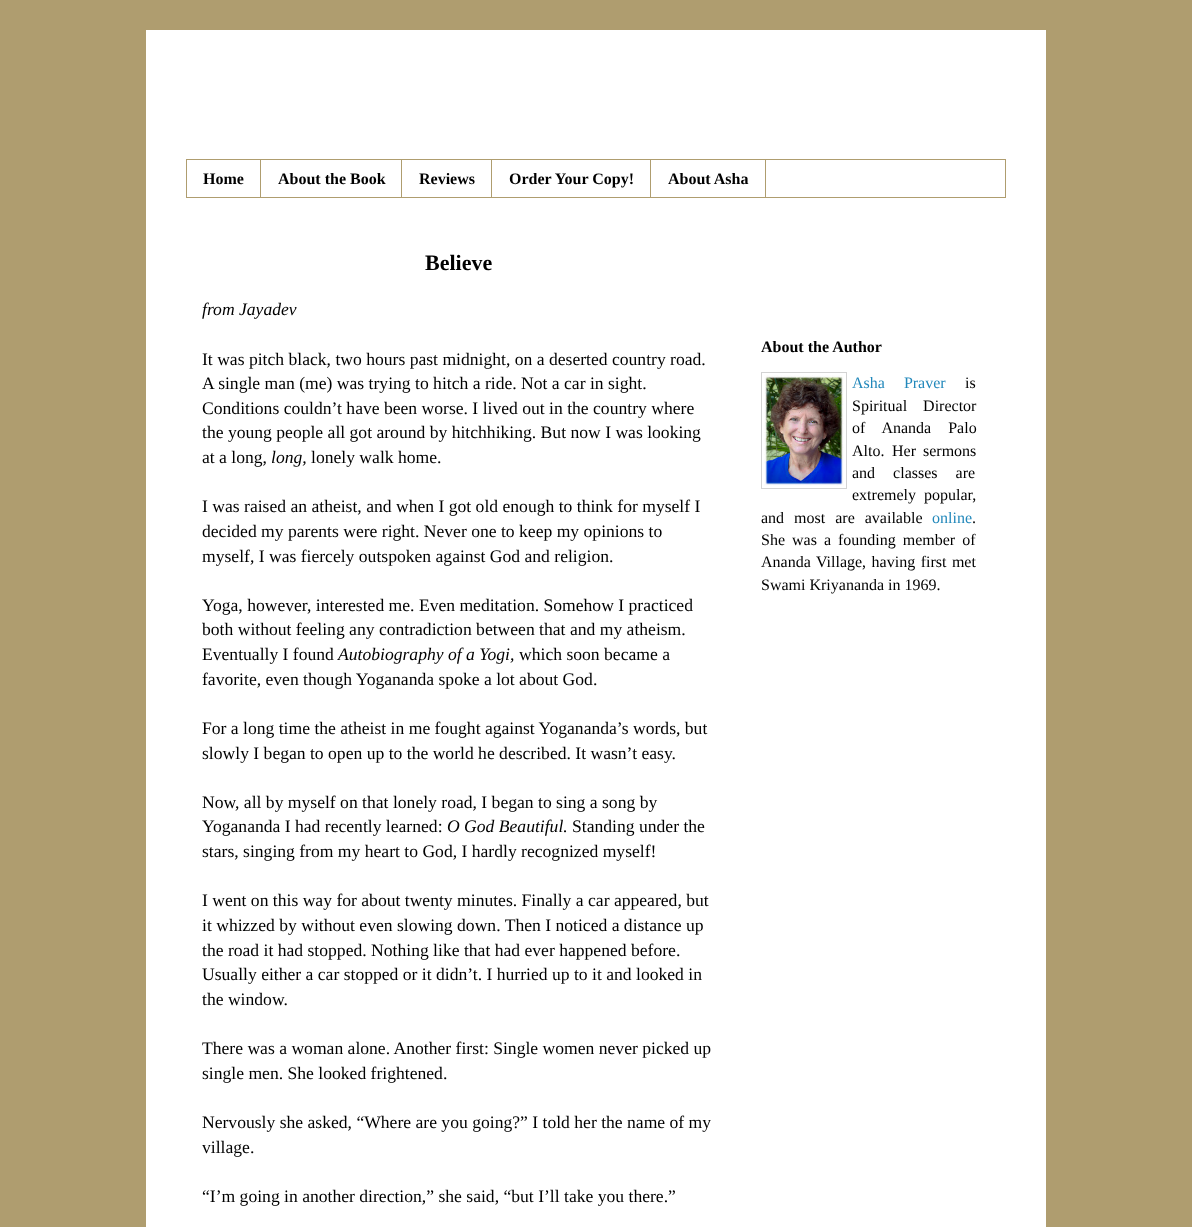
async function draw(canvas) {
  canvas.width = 1192;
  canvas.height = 1227;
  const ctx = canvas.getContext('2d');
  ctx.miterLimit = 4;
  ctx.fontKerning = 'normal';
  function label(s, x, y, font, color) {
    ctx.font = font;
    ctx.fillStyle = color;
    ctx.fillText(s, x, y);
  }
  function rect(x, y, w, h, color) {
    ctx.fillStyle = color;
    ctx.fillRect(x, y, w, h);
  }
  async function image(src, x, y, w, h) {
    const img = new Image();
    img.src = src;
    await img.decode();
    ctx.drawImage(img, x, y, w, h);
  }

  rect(0, 0, 1192, 1227, '#af9d6f');
  rect(146, 30, 900, 1197, '#fff');
  ctx.strokeStyle = '#af9d6f';
  ctx.strokeRect(186.5, 159.5, 819, 38);
  rect(260, 160, 1, 37, '#af9d6f');
  label('Home', 203, 184, 'bold 16px Liberation Serif', '#000');
  rect(401, 160, 1, 37, '#af9d6f');
  label('About the Book', 278, 184, 'bold 16px Liberation Serif', '#000');
  rect(491, 160, 1, 37, '#af9d6f');
  label('Reviews', 419, 184, 'bold 16px Liberation Serif', '#000');
  rect(650, 160, 1, 37, '#af9d6f');
  label('Order Your Copy!', 509, 184, 'bold 16px Liberation Serif', '#000');
  rect(765, 160, 1, 37, '#af9d6f');
  label('About Asha', 668, 184, 'bold 16px Liberation Serif', '#000');
  label('Believe', 425, 270, 'bold 22px Liberation Serif', '#000');
  label('from Jayadev', 202, 315, 'italic 17.6px Liberation Serif', '#000');
  label('It was pitch black, two hours past midnight, on a deserted country road.', 202, 365, '17.6px Liberation Serif', '#000');
  label('A single man (me) was trying to hitch a ride. Not a car in sight.', 202, 389, '17.6px Liberation Serif', '#000');
  label('Conditions couldn’t have been worse. I lived out in the country where', 202, 414, '17.6px Liberation Serif', '#000');
  label('the young people all got around by hitchhiking. But now I was looking', 202, 438, '17.6px Liberation Serif', '#000');
  label('at a long,', 202, 463, '17.6px Liberation Serif', '#000');
  label('long,', 271, 463, 'italic 17.6px Liberation Serif', '#000');
  label('lonely walk home.', 311, 463, '17.6px Liberation Serif', '#000');
  label('I was raised an atheist, and when I got old enough to think for myself I', 202, 512, '17.6px Liberation Serif', '#000');
  label('decided my parents were right. Never one to keep my opinions to', 202, 537, '17.6px Liberation Serif', '#000');
  label('myself, I was fiercely outspoken against God and religion.', 202, 562, '17.6px Liberation Serif', '#000');
  label('Yoga, however, interested me. Even meditation. Somehow I practiced', 202, 611, '17.6px Liberation Serif', '#000');
  label('both without feeling any contradiction between that and my atheism.', 202, 635, '17.6px Liberation Serif', '#000');
  label('Eventually I found', 202, 660, '17.6px Liberation Serif', '#000');
  label('Autobiography of a Yogi,', 338, 660, 'italic 17.6px Liberation Serif', '#000');
  label('which soon became a', 519, 660, '17.6px Liberation Serif', '#000');
  label('favorite, even though Yogananda spoke a lot about God.', 202, 685, '17.6px Liberation Serif', '#000');
  label('For a long time the atheist in me fought against Yogananda’s words, but', 202, 734, '17.6px Liberation Serif', '#000');
  label('slowly I began to open up to the world he described. It wasn’t easy.', 202, 759, '17.6px Liberation Serif', '#000');
  label('Now, all by myself on that lonely road, I began to sing a song by', 202, 808, '17.6px Liberation Serif', '#000');
  label('Yogananda I had recently learned:', 202, 832, '17.6px Liberation Serif', '#000');
  label('O God Beautiful.', 447, 832, 'italic 17.6px Liberation Serif', '#000');
  label('Standing under the', 572, 832, '17.6px Liberation Serif', '#000');
  label('stars, singing from my heart to God, I hardly recognized myself!', 202, 857, '17.6px Liberation Serif', '#000');
  label('I went on this way for about twenty minutes. Finally a car appeared, but', 202, 906, '17.6px Liberation Serif', '#000');
  label('it whizzed by without even slowing down. Then I noticed a distance up', 202, 931, '17.6px Liberation Serif', '#000');
  label('the road it had stopped. Nothing like that had ever happened before.', 202, 956, '17.6px Liberation Serif', '#000');
  label('Usually either a car stopped or it didn’t. I hurried up to it and looked in', 202, 980, '17.6px Liberation Serif', '#000');
  label('the window.', 202, 1005, '17.6px Liberation Serif', '#000');
  label('There was a woman alone. Another first: Single women never picked up', 202, 1054, '17.6px Liberation Serif', '#000');
  label('single men. She looked frightened.', 202, 1079, '17.6px Liberation Serif', '#000');
  label('Nervously she asked, “Where are you going?” I told her the name of my', 202, 1128, '17.6px Liberation Serif', '#000');
  label('village.', 202, 1153, '17.6px Liberation Serif', '#000');
  label('“I’m going in another direction,” she said, “but I’ll take you there.”', 202, 1202, '17.6px Liberation Serif', '#000');
  label('About the Author', 761, 352, 'bold 16px Liberation Serif', '#000');
  ctx.strokeStyle = '#d3d3d3';
  ctx.strokeRect(761.5, 372.5, 85, 116);
  await image('assets/img1.png', 764, 375, 80, 111);
  ctx.wordSpacing = '15px';
  label('Asha Praver', 852, 388, '16px Liberation Serif', '#28b');
  ctx.wordSpacing = '0px';
  label('is', 965, 388, '16px Liberation Serif', '#000');
  ctx.wordSpacing = '12px';
  label('Spiritual Director', 852, 411, '16px Liberation Serif', '#000');
  ctx.wordSpacing = '13px';
  label('of Ananda Palo', 852, 433, '16px Liberation Serif', '#000');
  ctx.wordSpacing = '0px';
  label('Alto.', 852, 456, '16px Liberation Serif', '#000');
  ctx.wordSpacing = '3px';
  label('Her sermons', 892, 456, '16px Liberation Serif', '#000');
  ctx.wordSpacing = '14px';
  label('and classes are', 852, 478, '16px Liberation Serif', '#000');
  ctx.wordSpacing = '4px';
  label('extremely popular,', 852, 500, '16px Liberation Serif', '#000');
  ctx.wordSpacing = '6px';
  label('and most are available', 761, 523, '16px Liberation Serif', '#000');
  ctx.wordSpacing = '0px';
  label('online', 932, 523, '16px Liberation Serif', '#28b');
  label('.', 972, 523, '16px Liberation Serif', '#000');
  ctx.wordSpacing = '3px';
  label('She was a founding member of', 761, 545, '16px Liberation Serif', '#000');
  ctx.wordSpacing = '1.5px';
  label('Ananda Village, having first met', 761, 567, '16px Liberation Serif', '#000');
  ctx.wordSpacing = '0px';
  label('Swami Kriyananda in 1969.', 761, 590, '16px Liberation Serif', '#000');
}

draw(document.querySelector('canvas'));
